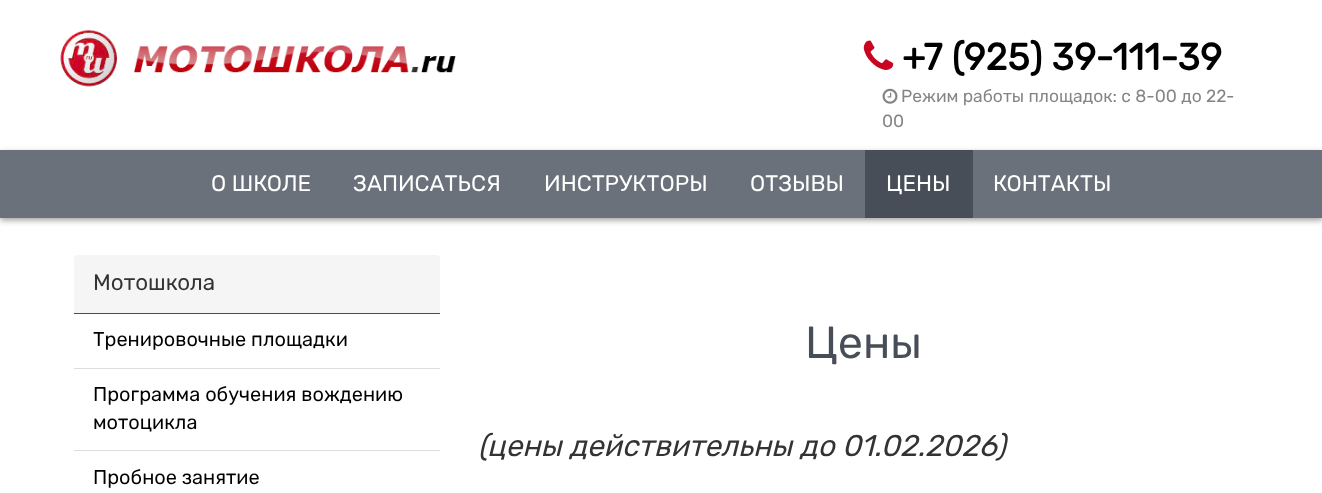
async function draw(canvas) {
  canvas.width = 1322;
  canvas.height = 493;
  const ctx = canvas.getContext('2d');
  ctx.miterLimit = 4;
  ctx.fontKerning = 'normal';
  function label(s, x, y, font, color) {
    ctx.font = font;
    ctx.fillStyle = color;
    ctx.fillText(s, x, y);
  }
  function rect(x, y, w, h, color) {
    ctx.fillStyle = color;
    ctx.fillRect(x, y, w, h);
  }
  async function image(src, x, y, w, h) {
    const img = new Image();
    img.src = src;
    await img.decode();
    ctx.drawImage(img, x, y, w, h);
  }

  rect(0, 0, 1322, 493, '#fff');
  await image('assets/img1.png', 60, 30, 396, 57);
  await image('assets/img2.png', 863, 40, 31, 30);
  label('+7 (925) 39-111-39', 902, 70, 'bold 37.5px Rubik', '#000');
  await image('assets/img3.png', 882, 88, 16, 16);
  label('Режим работы площадок: c 8-00 до 22-', 901, 102, '17.5px Rubik', '#848484');
  label('00', 882, 127, '17.5px Rubik', '#848484');
  ctx.fillStyle = '#00000066';
  ctx.filter = 'blur(3px)';
  ctx.beginPath();
  ctx.rect(0, 153, 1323, 67);
  ctx.fill();
  ctx.filter = 'none';
  rect(0, 150, 1322, 68, '#6a717a');
  label('О ШКОЛЕ', 211, 191, '22.5px Rubik', '#fff');
  label('ЗАПИСАТЬСЯ', 353, 191, '22.5px Rubik', '#fff');
  label('ИНСТРУКТОРЫ', 544, 191, '22.5px Rubik', '#fff');
  label('ОТЗЫВЫ', 750, 191, '22.5px Rubik', '#fff');
  rect(865, 150, 108, 68, '#484e58');
  label('ЦЕНЫ', 886, 191, '22.5px Rubik', '#fff');
  label('КОНТАКТЫ', 993, 191, '22.5px Rubik', '#fff');
  ctx.fillStyle = '#f5f5f5';
  ctx.beginPath();
  ctx.roundRect(74, 255, 366, 59, [4, 4, 0, 0]);
  ctx.fill();
  rect(74, 313, 366, 1, '#484e58');
  label('Мотошкола', 93, 290, '22.5px Rubik', '#333');
  rect(74, 368, 366, 1, '#ddd');
  label('Тренировочные площадки', 93, 346, '20px Rubik', '#000');
  rect(74, 450, 366, 1, '#ddd');
  label('Программа обучения вождению', 93, 401, '20px Rubik', '#000');
  label('мотоцикла', 93, 429, '20px Rubik', '#000');
  label('Пробное занятие', 93, 484, '20px Rubik', '#000');
  label('Цены', 805, 358, '45px Rubik', '#484e58');
  label('(цены действительны до 01.02.2026)', 478, 456, 'italic 30px Rubik', '#333');
}

draw(document.querySelector('canvas'));
